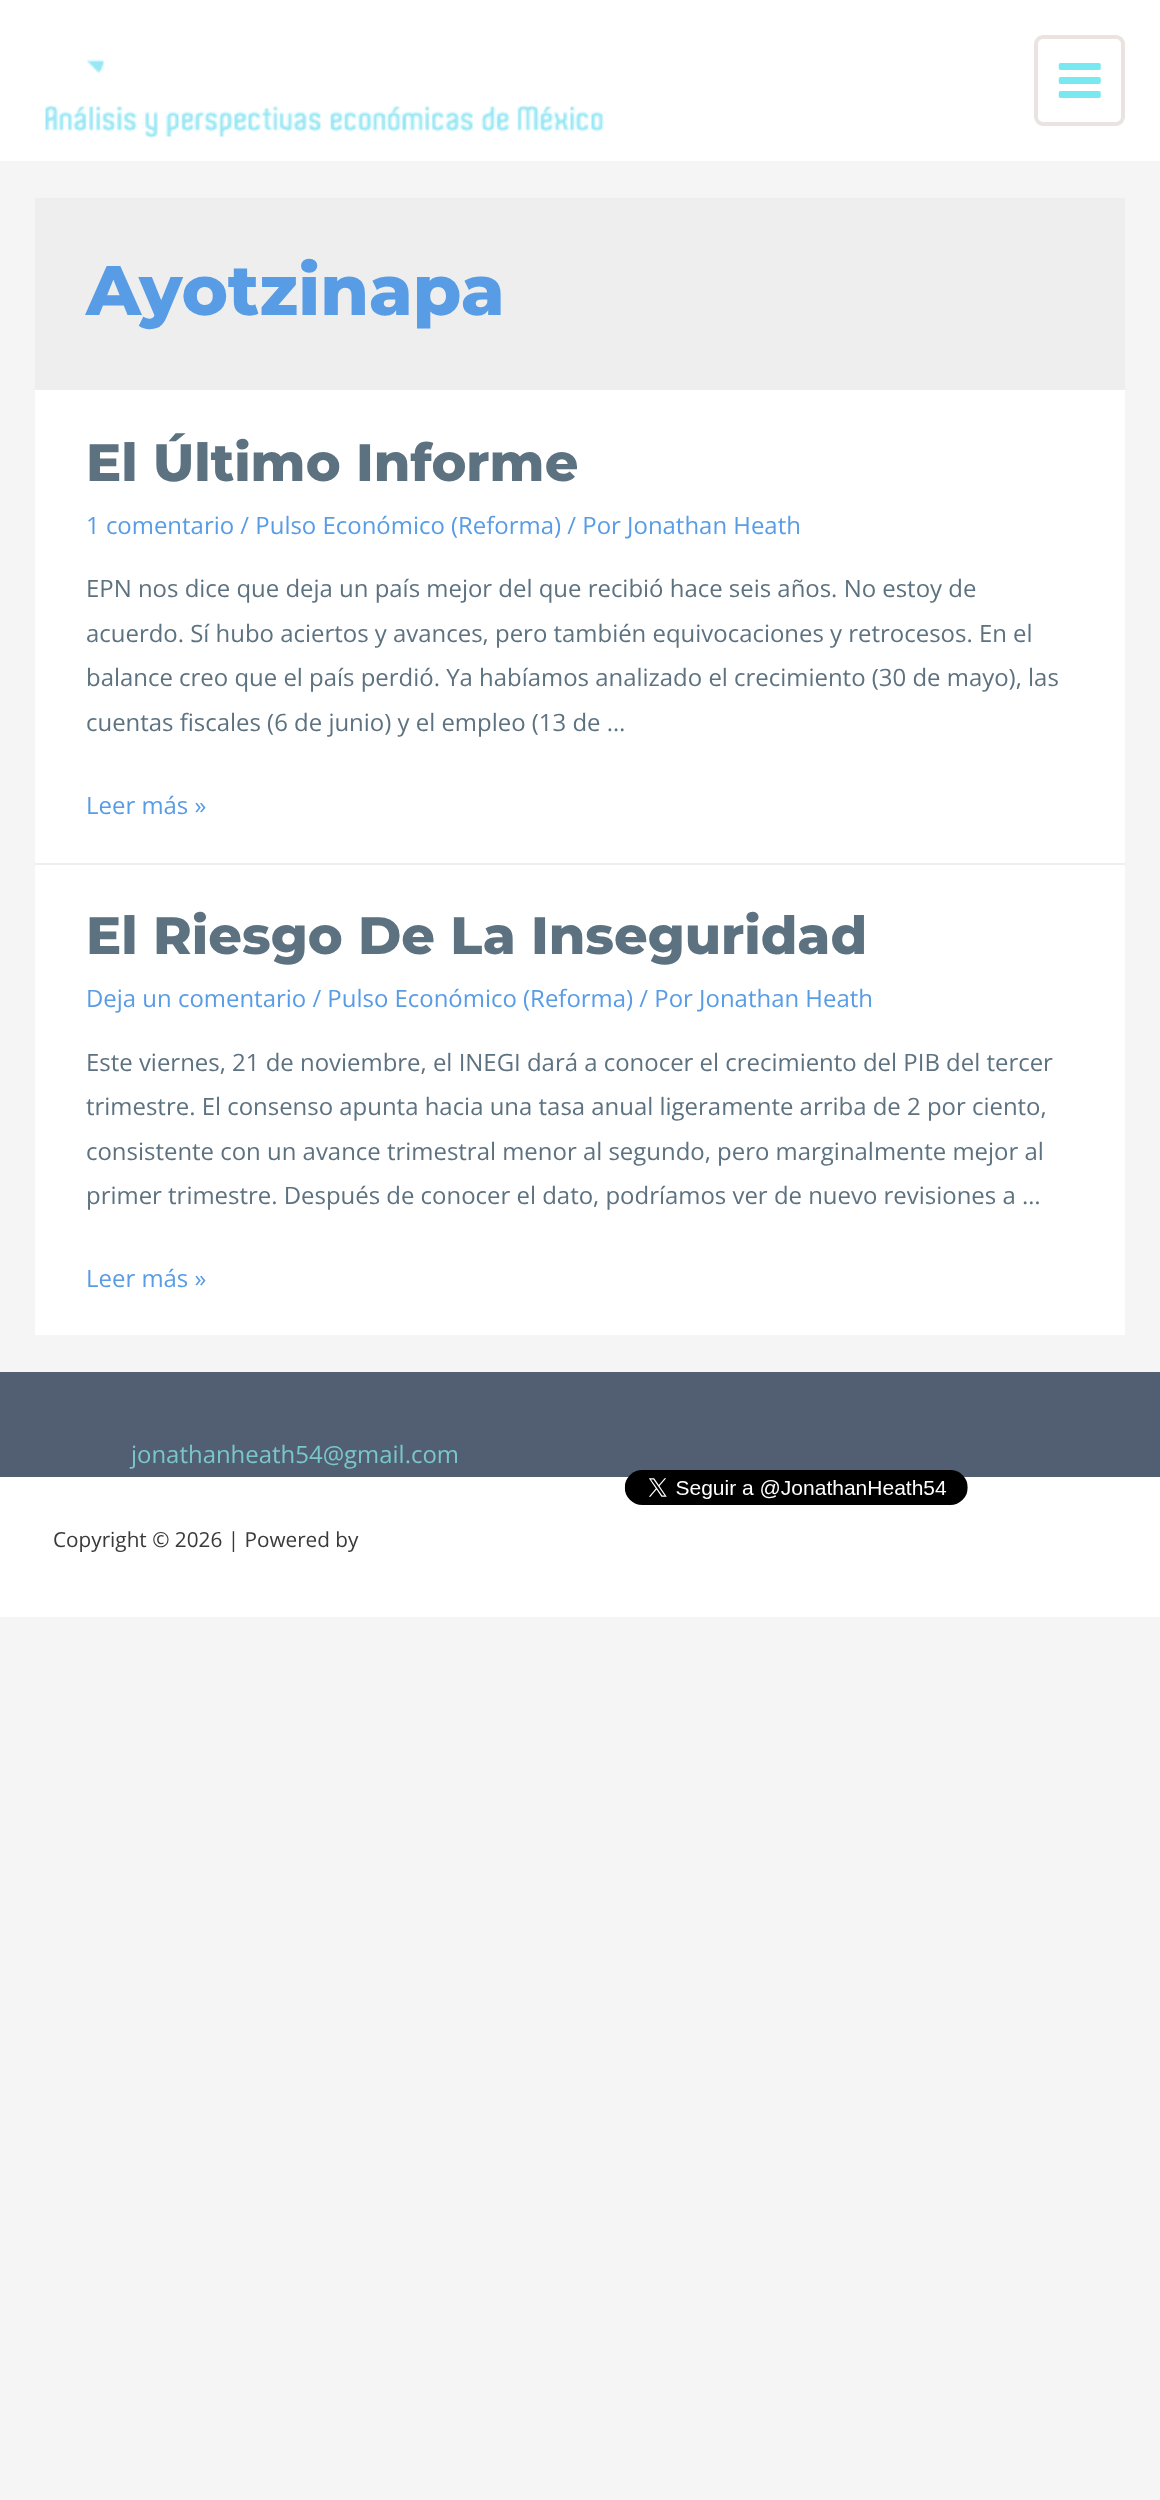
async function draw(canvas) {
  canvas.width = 1160;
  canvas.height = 2500;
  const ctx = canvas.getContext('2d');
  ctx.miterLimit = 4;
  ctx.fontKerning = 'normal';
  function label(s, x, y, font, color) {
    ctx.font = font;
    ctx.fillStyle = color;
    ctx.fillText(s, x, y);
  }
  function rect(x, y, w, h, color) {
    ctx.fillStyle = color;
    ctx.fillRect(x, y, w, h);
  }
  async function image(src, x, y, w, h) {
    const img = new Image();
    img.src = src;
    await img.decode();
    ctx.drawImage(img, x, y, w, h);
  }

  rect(0, 0, 1160, 2500, '#f5f5f5');
  rect(0, 0, 1160, 161, '#fff');
  await image('assets/img1.png', 45, 59, 559, 80);
  ctx.beginPath();
  ctx.roundRect(1036, 37, 87, 87, 7);
  ctx.strokeStyle = '#eae3e0';
  ctx.lineWidth = 4;
  ctx.stroke();
  await image('assets/img2.png', 1058, 63, 43, 35);
  rect(35, 198, 1090, 192, '#eee');
  label('Ayotzinapa', 86, 315, '100 70px Montserrat', '#589ce5');
  rect(35, 390, 1090, 473, '#fff');
  rect(35, 863, 1090, 2, '#eee');
  label('El Último Informe', 86, 481, '100 52.5px Montserrat', '#5d7280');
  label('1 comentario / Pulso Económico (Reforma) / Por Jonathan Heath', 86, 534, '23.95px Open Sans', '#589ce5');
  label('EPN nos dice que deja un país mejor del que recibió hace seis años. No estoy de', 86, 597, '23.95px Open Sans', '#5d7280');
  label('acuerdo. Sí hubo aciertos y avances, pero también equivocaciones y retrocesos. En el', 86, 642, '23.95px Open Sans', '#5d7280');
  label('balance creo que el país perdió. Ya habíamos analizado el crecimiento (30 de mayo), las', 86, 686, '23.95px Open Sans', '#5d7280');
  label('cuentas fiscales (6 de junio) y el empleo (13 de …', 86, 731, '23.95px Open Sans', '#5d7280');
  label('Leer más »', 86, 814, '23.95px Open Sans', '#589ce5');
  rect(35, 865, 1090, 470, '#fff');
  label('El Riesgo De La Inseguridad', 86, 954, '100 52.5px Montserrat', '#5d7280');
  label('Deja un comentario / Pulso Económico (Reforma) / Por Jonathan Heath', 86, 1007, '23.95px Open Sans', '#589ce5');
  label('Este viernes, 21 de noviembre, el INEGI dará a conocer el crecimiento del PIB del tercer', 86, 1071, '23.95px Open Sans', '#5d7280');
  label('trimestre. El consenso apunta hacia una tasa anual ligeramente arriba de 2 por ciento,', 86, 1115, '23.95px Open Sans', '#5d7280');
  label('consistente con un avance trimestral menor al segundo, pero marginalmente mejor al', 86, 1160, '23.95px Open Sans', '#5d7280');
  label('primer trimestre. Después de conocer el dato, podríamos ver de nuevo revisiones a …', 86, 1204, '23.95px Open Sans', '#5d7280');
  label('Leer más »', 86, 1287, '23.95px Open Sans', '#589ce5');
  rect(0, 1372, 1160, 105, '#525f72');
  label('jonathanheath54@gmail.com', 131, 1463, '23.95px Open Sans', '#79c7cb');
  rect(0, 1477, 1160, 140, '#fff');
  await image('assets/img3.png', 624, 1470, 344, 35);
  label('Copyright © 2026 | Powered by', 53, 1547, '20.75px Open Sans', '#3a3a3a');
}

draw(document.querySelector('canvas'));
